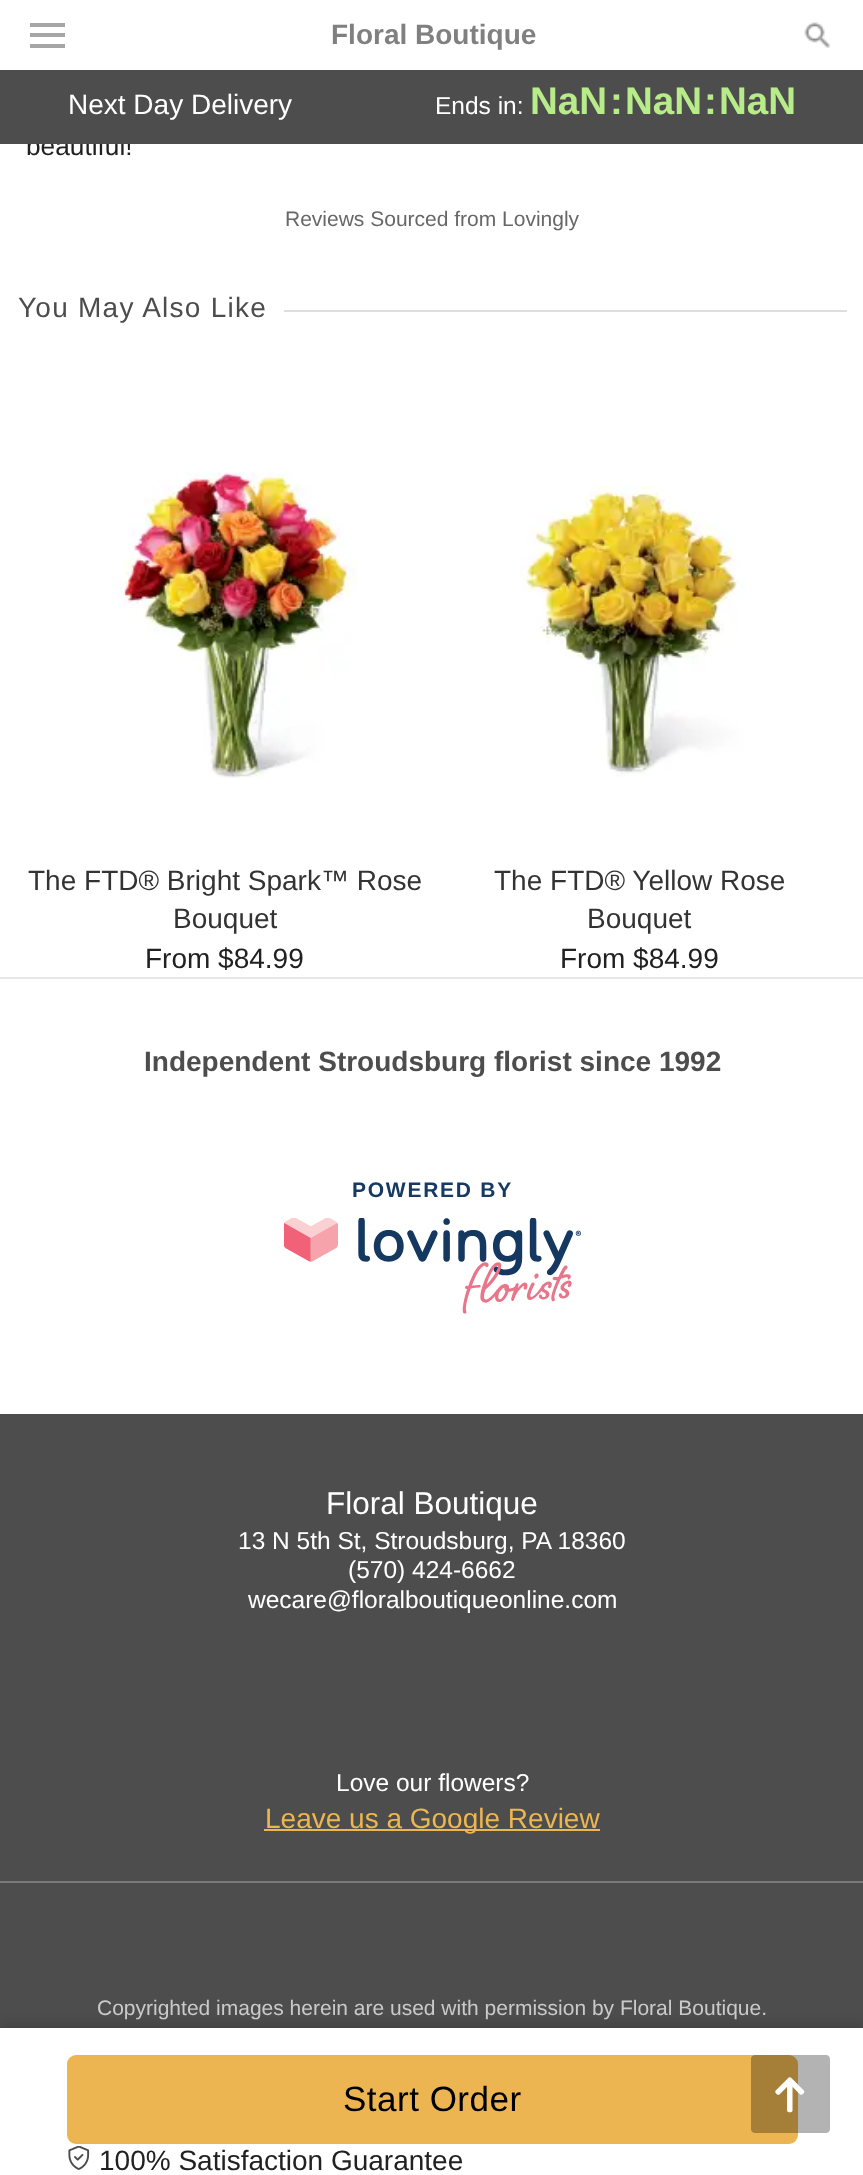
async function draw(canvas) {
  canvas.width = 863;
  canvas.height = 2175;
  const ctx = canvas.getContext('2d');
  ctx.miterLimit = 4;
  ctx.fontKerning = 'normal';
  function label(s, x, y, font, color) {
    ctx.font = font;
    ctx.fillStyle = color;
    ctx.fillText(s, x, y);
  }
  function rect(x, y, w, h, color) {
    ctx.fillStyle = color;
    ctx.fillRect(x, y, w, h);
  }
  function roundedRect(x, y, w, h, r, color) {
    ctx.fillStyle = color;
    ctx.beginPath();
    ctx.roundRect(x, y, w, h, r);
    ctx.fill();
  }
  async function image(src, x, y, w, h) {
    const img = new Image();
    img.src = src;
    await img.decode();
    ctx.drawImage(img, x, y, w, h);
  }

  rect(0, 0, 863, 2175, '#fff');
  rect(30, 33, 35, 4, '#a6a6a6');
  rect(30, 23, 35, 4, '#a6a6a6');
  rect(30, 44, 35, 4, '#a6a6a6');
  label('Floral Boutique', 331, 44, 'bold 28px Liberation Sans', '#808080');
  await image('assets/img1.png', 804, 22, 26, 27);
  label('beautiful!', 26, 155, '26.25px Liberation Sans', '#212121');
  rect(0, 70, 863, 74, '#4d4d4d');
  label('Next Day Delivery', 68, 114, '28px Liberation Sans', '#fff');
  label('Ends in:', 435, 114, '24.5px Liberation Sans', '#fff');
  label('NaN', 530, 114, 'bold 38.5px Liberation Sans', '#b8eb89');
  label(':', 610, 114, 'bold 38.5px Liberation Sans', '#b8eb89');
  label('NaN', 625, 114, 'bold 38.5px Liberation Sans', '#b8eb89');
  label(':', 704, 114, 'bold 38.5px Liberation Sans', '#b8eb89');
  label('NaN', 719, 114, 'bold 38.5px Liberation Sans', '#b8eb89');
  label('Reviews Sourced from Lovingly', 285, 226, '21px Liberation Sans', '#676767');
  ctx.letterSpacing = '1.25px';
  label('You May Also Like', 18, 317, '28px Liberation Sans', '#4d4d4d');
  rect(284, 310, 563, 2, '#dedede');
  await image('assets/img2.png', 118, 472, 239, 306);
  ctx.letterSpacing = '0px';
  label('The FTD® Bright Spark™ Rose', 28, 890, '28px Liberation Sans', '#333');
  label('Bouquet', 173, 928, '28px Liberation Sans', '#333');
  label('From $84.99', 145, 968, '28px Liberation Sans', '#212121');
  await image('assets/img3.png', 519, 486, 225, 291);
  label('The FTD® Yellow Rose', 494, 890, '28px Liberation Sans', '#333');
  label('Bouquet', 587, 928, '28px Liberation Sans', '#333');
  label('From $84.99', 560, 968, '28px Liberation Sans', '#212121');
  rect(0, 1414, 863, 614, '#4d4d4d');
  ctx.fillStyle = '#0000001f';
  ctx.filter = 'blur(5px)';
  ctx.beginPath();
  ctx.rect(0, 2023, 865, 147);
  ctx.fill();
  ctx.filter = 'none';
  rect(0, 2028, 863, 147, '#fff');
  roundedRect(67, 2055, 731, 89, 9, '#ecb551');
  ctx.letterSpacing = '0.5px';
  label('Start Order', 343, 2111, '35px Liberation Sans', '#000');
  await image('assets/img4.png', 68, 2146, 22, 24);
  ctx.letterSpacing = '0px';
  label('100% Satisfaction Guarantee', 99, 2170, '28px Liberation Sans', '#212121');
  rect(0, 977, 863, 2, '#e6e6e6');
  label('Independent Stroudsburg florist since 1992', 144, 1071, 'bold 28px Liberation Sans', '#4d4d4d');
  ctx.letterSpacing = '1.75px';
  label('POWERED BY', 352, 1197, 'bold 21px Liberation Sans', '#173a64');
  await image('assets/img5.png', 284, 1218, 297, 96);
  ctx.letterSpacing = '0px';
  label('Floral Boutique', 326, 1514, '31.5px Liberation Sans', '#fff');
  label('13 N 5th St, Stroudsburg, PA 18360', 238, 1549, '24.5px Liberation Sans', '#fff');
  label('(570) 424-6662', 348, 1578, '24.5px Liberation Sans', '#fff');
  label('wecare@floralboutiqueonline.com', 248, 1608, '24.5px Liberation Sans', '#fff');
  label('Love our flowers?', 336, 1791, '24.5px Liberation Sans', '#fff');
  rect(264, 1829, 336, 2, '#ecb650');
  label('Leave us a Google Review', 265, 1828, '28px Liberation Sans', '#ecb650');
  rect(0, 1881, 863, 2, '#7a7a7a');
  label('Copyrighted images herein are used with permission by Floral Boutique.', 97, 2015, '21px Liberation Sans', '#cacaca');
  await image('assets/img6.png', 751, 2055, 79, 78);
}

draw(document.querySelector('canvas'));
